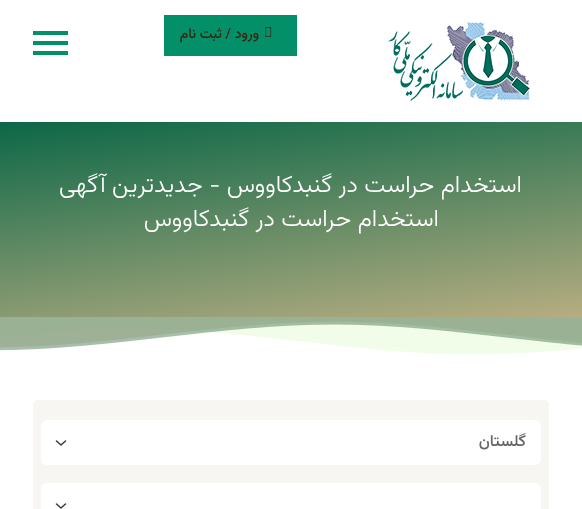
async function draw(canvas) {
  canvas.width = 582;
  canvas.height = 509;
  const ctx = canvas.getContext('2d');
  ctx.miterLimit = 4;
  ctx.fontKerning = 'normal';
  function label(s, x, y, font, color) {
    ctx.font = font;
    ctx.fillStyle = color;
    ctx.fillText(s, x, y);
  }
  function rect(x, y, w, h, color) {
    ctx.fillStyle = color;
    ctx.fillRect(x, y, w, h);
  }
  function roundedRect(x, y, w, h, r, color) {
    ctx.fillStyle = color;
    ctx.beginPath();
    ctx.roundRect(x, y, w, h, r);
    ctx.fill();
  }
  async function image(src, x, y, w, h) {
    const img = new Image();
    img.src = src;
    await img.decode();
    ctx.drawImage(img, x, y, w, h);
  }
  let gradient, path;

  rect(0, 0, 582, 509, '#fff');
  await image('assets/img1.png', 388, 22, 143, 79);
  rect(164, 15, 133, 41, '#038f68');
  await image('assets/img2.png', 265, 27, 7, 10);
  ctx.direction = 'rtl';
  label('ورود / ثبت نام', 259, 38, '500 14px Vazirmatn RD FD', '#3f240f');
  rect(33, 31, 35, 4, '#038f68');
  rect(33, 41, 35, 4, '#038f68');
  rect(33, 51, 35, 4, '#038f68');
  gradient = ctx.createLinearGradient(275, 88, 307, 351);
  gradient.addColorStop(0, '#0c6747');
  gradient.addColorStop(1, '#b7ad81');
  ctx.fillStyle = gradient;
  ctx.fillRect(0, 122, 582, 195);
  label('استخدام حراست در گنبدکاووس - جدیدترین آگهی', 522, 192, '300 24px Vazirmatn RD FD', '#fff');
  label('استخدام حراست در گنبدکاووس', 439, 226, '300 24px Vazirmatn RD FD', '#fff');
  await image('assets/img3.png', 0, 317, 582, 38);
  roundedRect(33, 400, 516, 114, 5, '#f7f6f2');
  roundedRect(41, 420, 500, 45, 6, '#fff');
  path = new Path2D('M56.5 441L61 445L65.5 441');
  ctx.strokeStyle = '#343a40';
  ctx.lineWidth = 1.5;
  ctx.lineCap = 'round';
  ctx.lineJoin = 'round';
  ctx.stroke(path);
  label('گلستان', 526, 446, '500 16px Vazirmatn RD FD', '#666');
  roundedRect(41, 483, 500, 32, 6, '#fff');
  path = new Path2D('M56.5 504L61 508L65.5 504');
  ctx.stroke(path);
}

draw(document.querySelector('canvas'));
